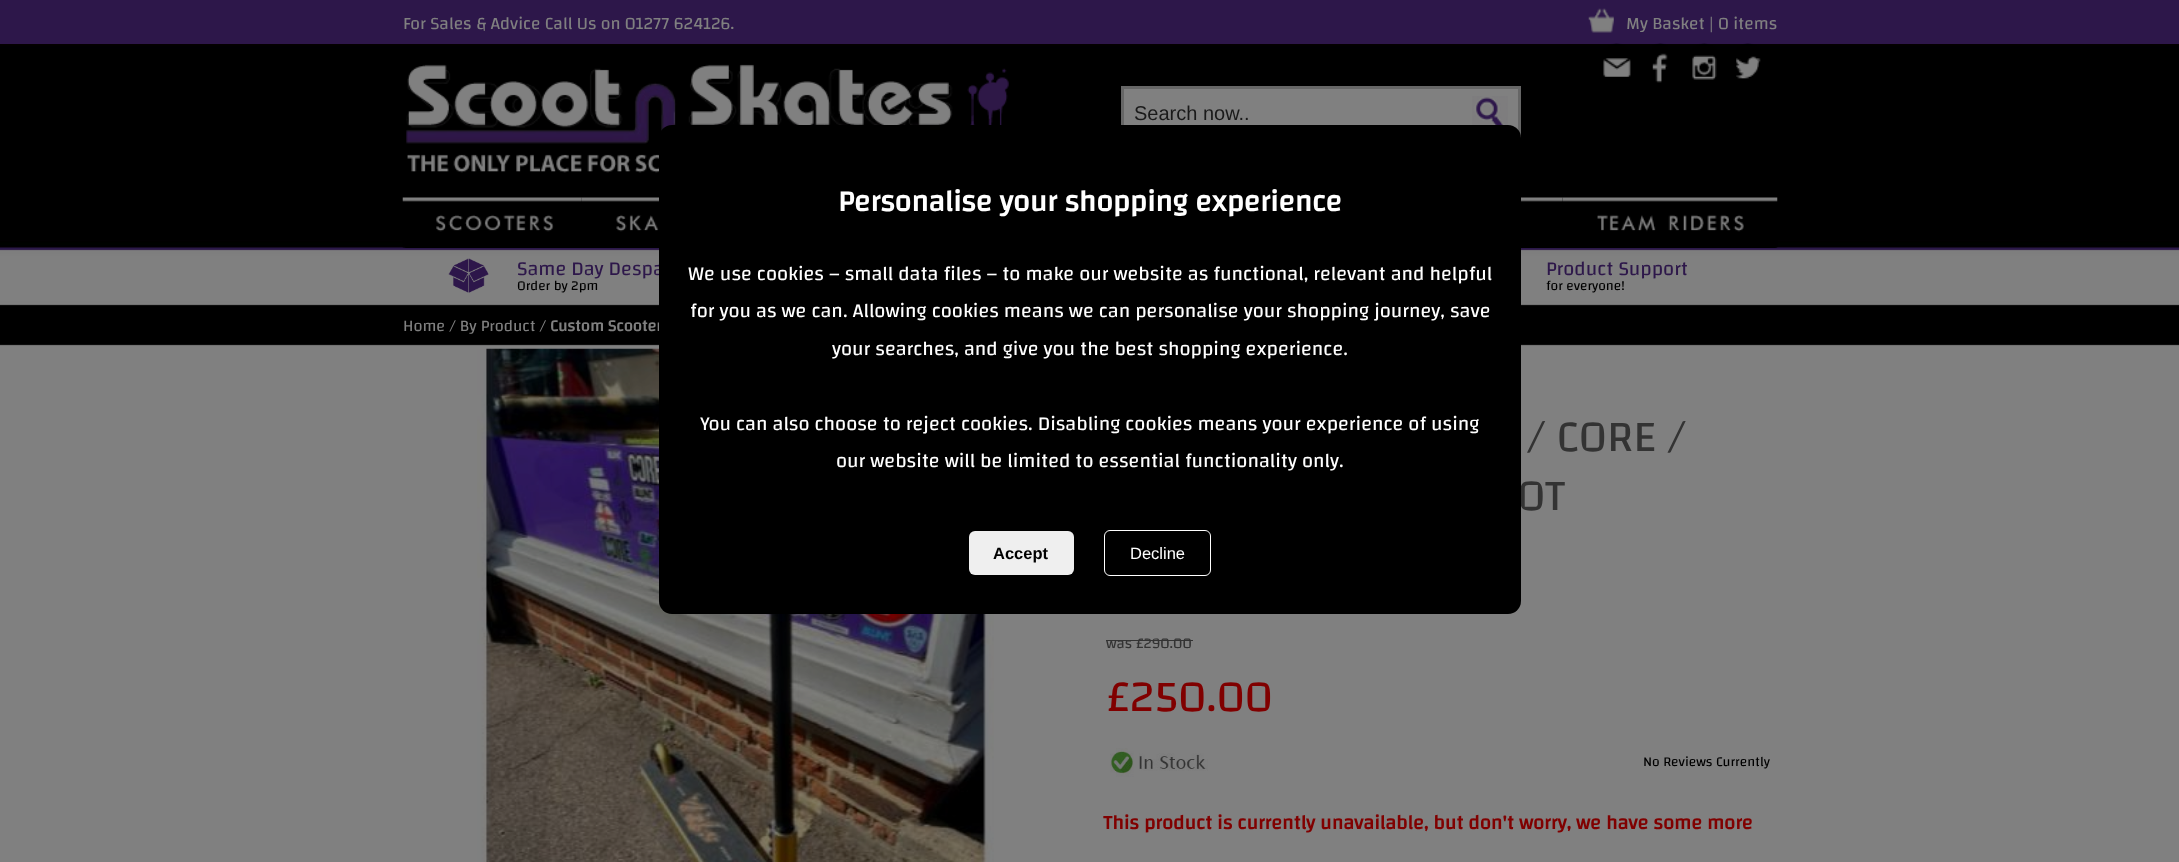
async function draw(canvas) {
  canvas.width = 2179;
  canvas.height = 862;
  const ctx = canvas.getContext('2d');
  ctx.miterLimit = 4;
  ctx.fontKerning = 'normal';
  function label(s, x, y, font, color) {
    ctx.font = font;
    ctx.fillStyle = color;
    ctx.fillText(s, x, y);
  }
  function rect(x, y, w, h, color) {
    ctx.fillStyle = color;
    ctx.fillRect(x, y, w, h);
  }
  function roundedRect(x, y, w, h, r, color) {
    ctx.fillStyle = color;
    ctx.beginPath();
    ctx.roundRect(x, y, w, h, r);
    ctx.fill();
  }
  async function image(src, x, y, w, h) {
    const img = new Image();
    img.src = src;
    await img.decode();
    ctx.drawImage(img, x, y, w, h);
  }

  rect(0, 0, 2179, 862, '#808080');
  await image('assets/img1.png', 0, 44, 2179, 302);
  rect(0, 0, 2179, 44, '#2d174a');
  label('For Sales & Advice Call Us on 01277 624126.', 403, 29, '17.5px Changa', '#808080');
  await image('assets/img2.png', 1588, 8, 26, 25);
  label('My Basket | 0 items', 1626, 29, '17.5px Changa', '#808080');
  await image('assets/img3.png', 406, 64, 603, 112);
  rect(1124, 89, 394, 41, '#808080');
  ctx.strokeStyle = '#666';
  ctx.lineWidth = 3;
  ctx.strokeRect(1122.5, 87.5, 397, 54);
  label('Search now..', 1134, 120, '20px Liberation Sans', '#1a1a1a');
  await image('assets/img4.png', 1472, 96, 36, 29);
  await image('assets/img5.png', 1603, 43, 28, 34);
  await image('assets/img6.png', 1652, 43, 16, 40);
  await image('assets/img7.png', 1692, 43, 25, 37);
  await image('assets/img8.png', 1736, 43, 25, 36);
  roundedRect(403, 198, 1375, 50, 4, '#000');
  await image('assets/img9.png', 402, 197, 180, 51);
  await image('assets/img10.png', 581, 197, 78, 35);
  await image('assets/img11.png', 1521, 197, 42, 35);
  await image('assets/img12.png', 1562, 197, 216, 51);
  await image('assets/img13.png', 448, 258, 41, 35);
  label('Same Day Despa', 517, 275, '20px Changa', '#2d174a');
  label('Order by 2pm', 517, 290, '13.75px Changa', '#000');
  label('Product Support', 1546, 275, '20px Changa', '#2d174a');
  label('for everyone!', 1546, 290, '13.75px Changa', '#000');
  label('Home / By Product /', 403, 331, '16.25px Changa', '#808080');
  label('Custom Scooter', 550, 331, 'bold 16.25px Changa', '#808080');
  await image('assets/img14.png', 477, 348, 517, 514);
  label('/ CORE /', 1527, 451, '45px Changa', '#333');
  label('OT', 1517, 510, '45px Changa', '#333');
  label('was £290.00', 1106, 648, '15px Changa', '#333');
  rect(1106, 640, 87, 1, '#333');
  label('£250.00', 1106, 711, '45px Changa', '#800000');
  await image('assets/img15.png', 1110, 748, 98, 29);
  label('No Reviews Currently', 1643, 766, '13.75px Changa', '#000');
  label('This product is currently unavailable, but don\'t worry, we have some more', 1103, 829, 'bold 20px Changa', '#800000');
  roundedRect(659, 125, 862, 489, 13, '#000');
  label('Personalise your shopping experience', 838, 211, 'bold 30px Changa', '#fff');
  label('We use cookies – small data files – to make our website as functional, relevant and helpful', 688, 280, '20px Changa', '#fff');
  label('for you as we can. Allowing cookies means we can personalise your shopping journey, save', 690, 317, '20px Changa', '#fff');
  label('your searches, and give you the best shopping experience.', 832, 355, '20px Changa', '#fff');
  label('You can also choose to reject cookies. Disabling cookies means your experience of using', 700, 430, '20px Changa', '#fff');
  label('our website will be limited to essential functionality only.', 836, 467, '20px Changa', '#fff');
  roundedRect(969, 531, 105, 44, 6, '#efefef');
  label('Accept', 993, 559, 'bold 16.5px Liberation Sans', '#000');
  ctx.beginPath();
  ctx.roundRect(1104.5, 530.5, 106, 45, 5.5);
  ctx.strokeStyle = '#fff';
  ctx.lineWidth = 1;
  ctx.stroke();
  label('Decline', 1130, 559, '16.5px Liberation Sans', '#fff');
}

draw(document.querySelector('canvas'));
